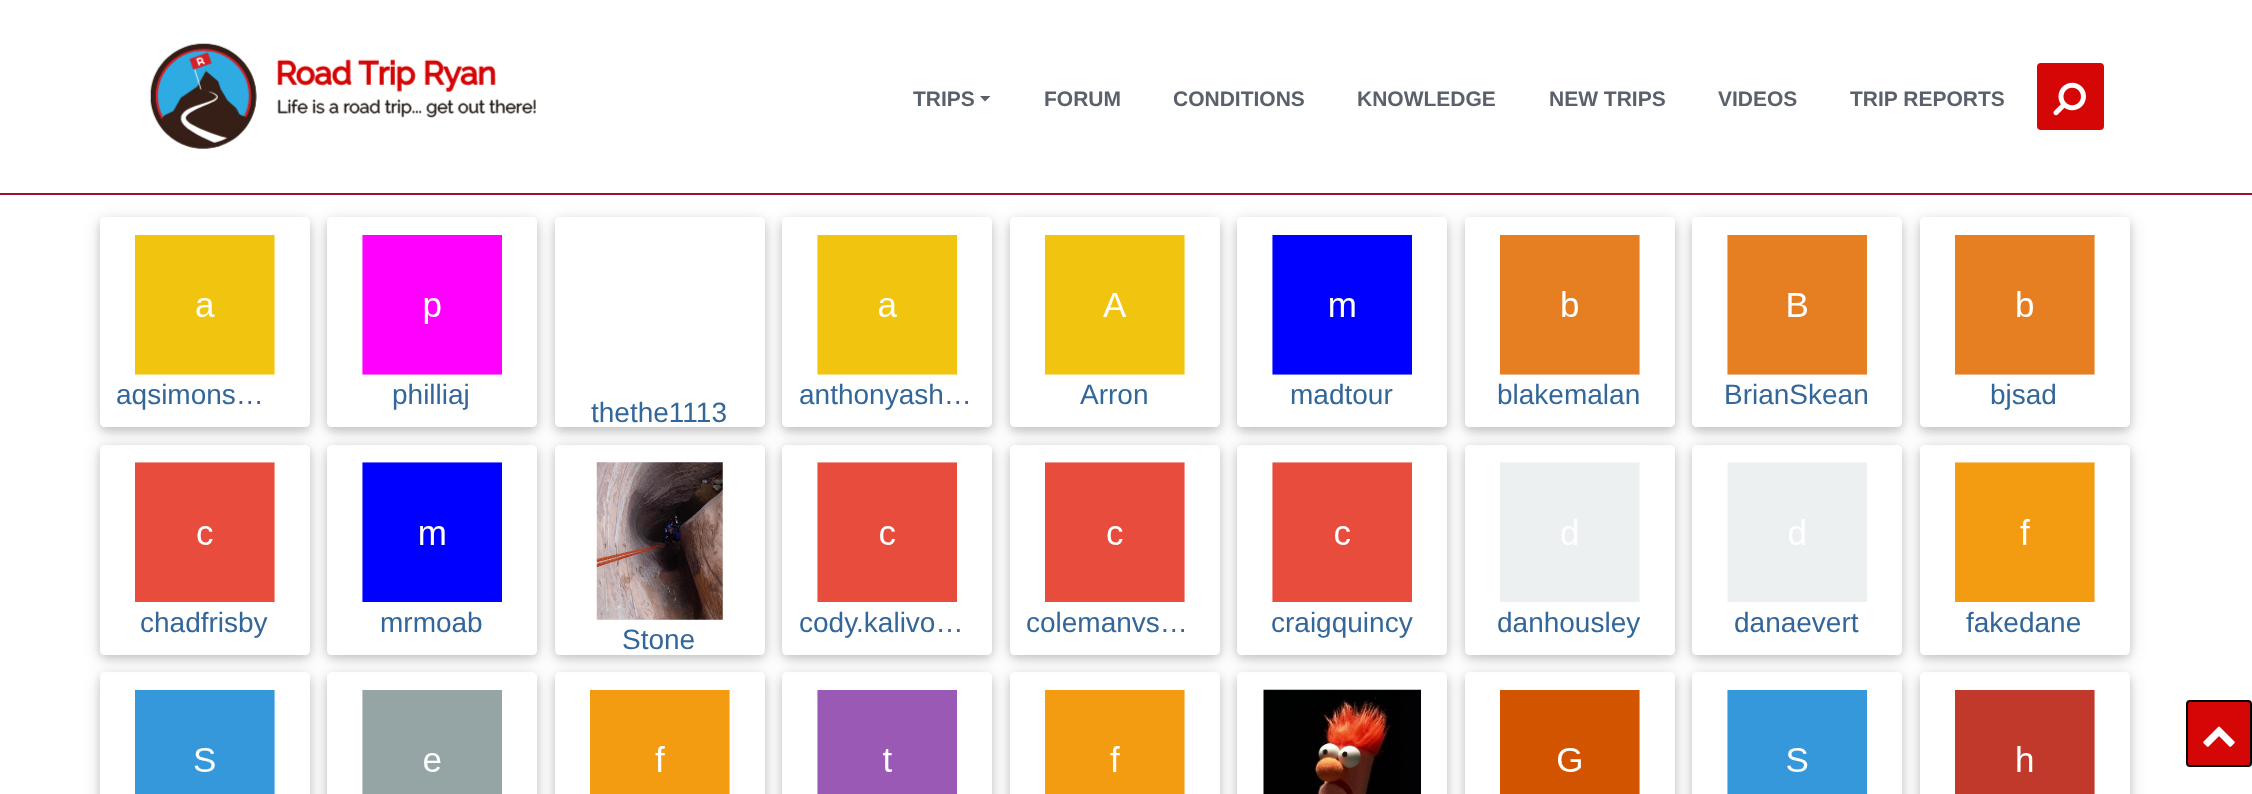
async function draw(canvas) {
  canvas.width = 2252;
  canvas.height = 794;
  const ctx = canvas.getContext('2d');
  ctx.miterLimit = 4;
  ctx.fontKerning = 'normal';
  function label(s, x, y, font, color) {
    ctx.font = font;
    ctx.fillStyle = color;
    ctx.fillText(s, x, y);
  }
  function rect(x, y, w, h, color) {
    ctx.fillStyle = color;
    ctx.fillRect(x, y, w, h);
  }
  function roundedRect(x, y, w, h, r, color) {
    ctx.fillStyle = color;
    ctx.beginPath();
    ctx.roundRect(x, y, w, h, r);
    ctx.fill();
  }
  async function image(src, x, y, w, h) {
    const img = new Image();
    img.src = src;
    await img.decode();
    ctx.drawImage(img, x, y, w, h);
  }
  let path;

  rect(0, 0, 2252, 794, '#fff');
  ctx.save();
  path = new Path2D('M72 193H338V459H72ZM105 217H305C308 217 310 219 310 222V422C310 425 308 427 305 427H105C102 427 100 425 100 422V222C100 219 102 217 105 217Z');
  ctx.clip(path, 'evenodd');
  ctx.fillStyle = '#0000001f';
  ctx.filter = 'blur(9px)';
  ctx.beginPath();
  ctx.roundRect(100, 221, 210, 210, 5);
  ctx.fill();
  ctx.filter = 'none';
  ctx.restore();
  ctx.save();
  path = new Path2D('M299 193H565V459H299ZM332 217H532C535 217 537 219 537 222V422C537 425 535 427 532 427H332C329 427 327 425 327 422V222C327 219 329 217 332 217Z');
  ctx.clip(path, 'evenodd');
  ctx.fillStyle = '#0000001f';
  ctx.filter = 'blur(9px)';
  ctx.beginPath();
  ctx.roundRect(327, 221, 210, 210, 5);
  ctx.fill();
  ctx.filter = 'none';
  ctx.restore();
  ctx.save();
  path = new Path2D('M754 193H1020V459H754ZM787 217H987C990 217 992 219 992 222V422C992 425 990 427 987 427H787C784 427 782 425 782 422V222C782 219 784 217 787 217Z');
  ctx.clip(path, 'evenodd');
  ctx.fillStyle = '#0000001f';
  ctx.filter = 'blur(9px)';
  ctx.beginPath();
  ctx.roundRect(782, 221, 210, 210, 5);
  ctx.fill();
  ctx.filter = 'none';
  ctx.restore();
  ctx.save();
  path = new Path2D('M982 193H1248V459H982ZM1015 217H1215C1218 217 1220 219 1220 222V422C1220 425 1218 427 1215 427H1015C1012 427 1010 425 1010 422V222C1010 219 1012 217 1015 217Z');
  ctx.clip(path, 'evenodd');
  ctx.fillStyle = '#0000001f';
  ctx.filter = 'blur(9px)';
  ctx.beginPath();
  ctx.roundRect(1010, 221, 210, 210, 5);
  ctx.fill();
  ctx.filter = 'none';
  ctx.restore();
  ctx.save();
  path = new Path2D('M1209 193H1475V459H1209ZM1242 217H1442C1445 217 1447 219 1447 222V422C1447 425 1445 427 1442 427H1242C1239 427 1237 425 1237 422V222C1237 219 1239 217 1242 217Z');
  ctx.clip(path, 'evenodd');
  ctx.fillStyle = '#0000001f';
  ctx.filter = 'blur(9px)';
  ctx.beginPath();
  ctx.roundRect(1237, 221, 210, 210, 5);
  ctx.fill();
  ctx.filter = 'none';
  ctx.restore();
  ctx.save();
  path = new Path2D('M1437 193H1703V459H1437ZM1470 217H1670C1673 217 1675 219 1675 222V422C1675 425 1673 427 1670 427H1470C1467 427 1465 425 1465 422V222C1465 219 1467 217 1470 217Z');
  ctx.clip(path, 'evenodd');
  ctx.fillStyle = '#0000001f';
  ctx.filter = 'blur(9px)';
  ctx.beginPath();
  ctx.roundRect(1465, 221, 210, 210, 5);
  ctx.fill();
  ctx.filter = 'none';
  ctx.restore();
  ctx.save();
  path = new Path2D('M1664 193H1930V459H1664ZM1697 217H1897C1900 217 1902 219 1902 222V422C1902 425 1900 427 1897 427H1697C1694 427 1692 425 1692 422V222C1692 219 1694 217 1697 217Z');
  ctx.clip(path, 'evenodd');
  ctx.fillStyle = '#0000001f';
  ctx.filter = 'blur(9px)';
  ctx.beginPath();
  ctx.roundRect(1692, 221, 210, 210, 5);
  ctx.fill();
  ctx.filter = 'none';
  ctx.restore();
  ctx.save();
  path = new Path2D('M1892 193H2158V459H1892ZM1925 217H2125C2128 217 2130 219 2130 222V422C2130 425 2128 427 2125 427H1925C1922 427 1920 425 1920 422V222C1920 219 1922 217 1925 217Z');
  ctx.clip(path, 'evenodd');
  ctx.fillStyle = '#0000001f';
  ctx.filter = 'blur(9px)';
  ctx.beginPath();
  ctx.roundRect(1920, 221, 210, 210, 5);
  ctx.fill();
  ctx.filter = 'none';
  ctx.restore();
  ctx.save();
  path = new Path2D('M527 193H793V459H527ZM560 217H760C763 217 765 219 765 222V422C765 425 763 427 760 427H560C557 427 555 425 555 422V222C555 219 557 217 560 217Z');
  ctx.clip(path, 'evenodd');
  ctx.fillStyle = '#0000001f';
  ctx.filter = 'blur(9px)';
  ctx.beginPath();
  ctx.roundRect(555, 221, 210, 210, 5);
  ctx.fill();
  ctx.filter = 'none';
  ctx.restore();
  rect(0, 193, 2252, 2, '#a10f2b');
  await image('assets/img1.png', 150, 43, 386, 106);
  label('TRIPS', 913, 106, 'bold 21px Liberation Sans', '#5b616b');
  path = new Path2D('M980 96H990.5L985 101.5Z');
  ctx.fill(path);
  label('FORUM', 1044, 106, 'bold 21px Liberation Sans', '#5b616b');
  label('CONDITIONS', 1173, 106, 'bold 21px Liberation Sans', '#5b616b');
  label('KNOWLEDGE', 1357, 106, 'bold 21px Liberation Sans', '#5b616b');
  label('NEW TRIPS', 1549, 106, 'bold 21px Liberation Sans', '#5b616b');
  label('VIDEOS', 1718, 106, 'bold 21px Liberation Sans', '#5b616b');
  label('TRIP REPORTS', 1850, 106, 'bold 21px Liberation Sans', '#5b616b');
  roundedRect(2037, 63, 67, 67, 4, '#d40606');
  await image('assets/img2.png', 2053, 82, 33, 34);
  ctx.save();
  path = new Path2D('M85 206H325V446H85ZM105 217H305C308 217 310 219 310 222V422C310 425 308 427 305 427H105C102 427 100 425 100 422V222C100 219 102 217 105 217Z');
  ctx.clip(path, 'evenodd');
  ctx.fillStyle = '#00000029';
  ctx.filter = 'blur(4.5px)';
  ctx.beginPath();
  ctx.roundRect(100, 221, 210, 210, 5);
  ctx.fill();
  ctx.filter = 'none';
  ctx.restore();
  await image('assets/img3.png', 135, 235, 140, 140);
  label('aqsimons…', 116, 404, '28px Liberation Sans', '#369');
  ctx.save();
  path = new Path2D('M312 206H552V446H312ZM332 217H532C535 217 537 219 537 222V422C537 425 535 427 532 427H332C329 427 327 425 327 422V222C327 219 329 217 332 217Z');
  ctx.clip(path, 'evenodd');
  ctx.fillStyle = '#00000029';
  ctx.filter = 'blur(4.5px)';
  ctx.beginPath();
  ctx.roundRect(327, 221, 210, 210, 5);
  ctx.fill();
  ctx.filter = 'none';
  ctx.restore();
  await image('assets/img4.png', 362, 235, 140, 140);
  label('philliaj', 392, 404, '28px Liberation Sans', '#369');
  ctx.save();
  path = new Path2D('M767 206H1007V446H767ZM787 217H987C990 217 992 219 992 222V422C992 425 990 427 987 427H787C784 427 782 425 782 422V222C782 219 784 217 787 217Z');
  ctx.clip(path, 'evenodd');
  ctx.fillStyle = '#00000029';
  ctx.filter = 'blur(4.5px)';
  ctx.beginPath();
  ctx.roundRect(782, 221, 210, 210, 5);
  ctx.fill();
  ctx.filter = 'none';
  ctx.restore();
  await image('assets/img5.png', 817, 235, 140, 140);
  label('anthonyash…', 799, 404, '28px Liberation Sans', '#369');
  ctx.save();
  path = new Path2D('M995 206H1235V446H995ZM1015 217H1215C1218 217 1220 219 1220 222V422C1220 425 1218 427 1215 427H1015C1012 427 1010 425 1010 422V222C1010 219 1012 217 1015 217Z');
  ctx.clip(path, 'evenodd');
  ctx.fillStyle = '#00000029';
  ctx.filter = 'blur(4.5px)';
  ctx.beginPath();
  ctx.roundRect(1010, 221, 210, 210, 5);
  ctx.fill();
  ctx.filter = 'none';
  ctx.restore();
  await image('assets/img6.png', 1045, 235, 140, 140);
  label('Arron', 1080, 404, '28px Liberation Sans', '#369');
  ctx.save();
  path = new Path2D('M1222 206H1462V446H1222ZM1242 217H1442C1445 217 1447 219 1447 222V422C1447 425 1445 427 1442 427H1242C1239 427 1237 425 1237 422V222C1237 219 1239 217 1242 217Z');
  ctx.clip(path, 'evenodd');
  ctx.fillStyle = '#00000029';
  ctx.filter = 'blur(4.5px)';
  ctx.beginPath();
  ctx.roundRect(1237, 221, 210, 210, 5);
  ctx.fill();
  ctx.filter = 'none';
  ctx.restore();
  await image('assets/img7.png', 1272, 235, 140, 140);
  label('madtour', 1290, 404, '28px Liberation Sans', '#369');
  ctx.save();
  path = new Path2D('M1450 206H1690V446H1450ZM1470 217H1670C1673 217 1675 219 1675 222V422C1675 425 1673 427 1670 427H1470C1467 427 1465 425 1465 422V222C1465 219 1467 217 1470 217Z');
  ctx.clip(path, 'evenodd');
  ctx.fillStyle = '#00000029';
  ctx.filter = 'blur(4.5px)';
  ctx.beginPath();
  ctx.roundRect(1465, 221, 210, 210, 5);
  ctx.fill();
  ctx.filter = 'none';
  ctx.restore();
  await image('assets/img8.png', 1500, 235, 140, 140);
  label('blakemalan', 1497, 404, '28px Liberation Sans', '#369');
  ctx.save();
  path = new Path2D('M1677 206H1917V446H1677ZM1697 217H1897C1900 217 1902 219 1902 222V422C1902 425 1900 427 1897 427H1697C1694 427 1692 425 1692 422V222C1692 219 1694 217 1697 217Z');
  ctx.clip(path, 'evenodd');
  ctx.fillStyle = '#00000029';
  ctx.filter = 'blur(4.5px)';
  ctx.beginPath();
  ctx.roundRect(1692, 221, 210, 210, 5);
  ctx.fill();
  ctx.filter = 'none';
  ctx.restore();
  await image('assets/img9.png', 1727, 235, 140, 140);
  label('BrianSkean', 1724, 404, '28px Liberation Sans', '#369');
  ctx.save();
  path = new Path2D('M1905 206H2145V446H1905ZM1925 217H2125C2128 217 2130 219 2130 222V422C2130 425 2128 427 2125 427H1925C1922 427 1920 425 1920 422V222C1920 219 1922 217 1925 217Z');
  ctx.clip(path, 'evenodd');
  ctx.fillStyle = '#00000029';
  ctx.filter = 'blur(4.5px)';
  ctx.beginPath();
  ctx.roundRect(1920, 221, 210, 210, 5);
  ctx.fill();
  ctx.filter = 'none';
  ctx.restore();
  await image('assets/img8.png', 1955, 235, 140, 140);
  label('bjsad', 1990, 404, '28px Liberation Sans', '#369');
  ctx.save();
  path = new Path2D('M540 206H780V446H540ZM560 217H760C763 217 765 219 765 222V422C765 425 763 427 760 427H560C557 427 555 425 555 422V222C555 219 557 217 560 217Z');
  ctx.clip(path, 'evenodd');
  ctx.fillStyle = '#00000029';
  ctx.filter = 'blur(4.5px)';
  ctx.beginPath();
  ctx.roundRect(555, 221, 210, 210, 5);
  ctx.fill();
  ctx.filter = 'none';
  ctx.restore();
  label('thethe1113', 591, 422, '28px Liberation Sans', '#369');
  ctx.save();
  path = new Path2D('M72 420H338V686H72ZM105 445H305C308 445 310 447 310 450V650C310 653 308 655 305 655H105C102 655 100 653 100 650V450C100 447 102 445 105 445Z');
  ctx.clip(path, 'evenodd');
  ctx.fillStyle = '#0000001f';
  ctx.filter = 'blur(9px)';
  ctx.beginPath();
  ctx.roundRect(100, 448, 210, 210, 5);
  ctx.fill();
  ctx.filter = 'none';
  ctx.restore();
  ctx.save();
  path = new Path2D('M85 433H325V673H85ZM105 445H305C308 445 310 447 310 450V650C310 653 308 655 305 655H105C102 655 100 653 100 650V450C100 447 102 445 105 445Z');
  ctx.clip(path, 'evenodd');
  ctx.fillStyle = '#00000029';
  ctx.filter = 'blur(4.5px)';
  ctx.beginPath();
  ctx.roundRect(100, 448, 210, 210, 5);
  ctx.fill();
  ctx.filter = 'none';
  ctx.restore();
  await image('assets/img10.png', 135, 462, 140, 140);
  label('chadfrisby', 140, 632, '28px Liberation Sans', '#369');
  ctx.save();
  path = new Path2D('M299 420H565V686H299ZM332 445H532C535 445 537 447 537 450V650C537 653 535 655 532 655H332C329 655 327 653 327 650V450C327 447 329 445 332 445Z');
  ctx.clip(path, 'evenodd');
  ctx.fillStyle = '#0000001f';
  ctx.filter = 'blur(9px)';
  ctx.beginPath();
  ctx.roundRect(327, 448, 210, 210, 5);
  ctx.fill();
  ctx.filter = 'none';
  ctx.restore();
  ctx.save();
  path = new Path2D('M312 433H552V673H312ZM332 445H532C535 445 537 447 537 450V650C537 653 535 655 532 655H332C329 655 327 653 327 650V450C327 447 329 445 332 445Z');
  ctx.clip(path, 'evenodd');
  ctx.fillStyle = '#00000029';
  ctx.filter = 'blur(4.5px)';
  ctx.beginPath();
  ctx.roundRect(327, 448, 210, 210, 5);
  ctx.fill();
  ctx.filter = 'none';
  ctx.restore();
  await image('assets/img11.png', 362, 462, 140, 140);
  label('mrmoab', 380, 632, '28px Liberation Sans', '#369');
  ctx.save();
  path = new Path2D('M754 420H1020V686H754ZM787 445H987C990 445 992 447 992 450V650C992 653 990 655 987 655H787C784 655 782 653 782 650V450C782 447 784 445 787 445Z');
  ctx.clip(path, 'evenodd');
  ctx.fillStyle = '#0000001f';
  ctx.filter = 'blur(9px)';
  ctx.beginPath();
  ctx.roundRect(782, 448, 210, 210, 5);
  ctx.fill();
  ctx.filter = 'none';
  ctx.restore();
  ctx.save();
  path = new Path2D('M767 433H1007V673H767ZM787 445H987C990 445 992 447 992 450V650C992 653 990 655 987 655H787C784 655 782 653 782 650V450C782 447 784 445 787 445Z');
  ctx.clip(path, 'evenodd');
  ctx.fillStyle = '#00000029';
  ctx.filter = 'blur(4.5px)';
  ctx.beginPath();
  ctx.roundRect(782, 448, 210, 210, 5);
  ctx.fill();
  ctx.filter = 'none';
  ctx.restore();
  await image('assets/img12.png', 817, 462, 140, 140);
  label('cody.kalivo…', 799, 632, '28px Liberation Sans', '#369');
  ctx.save();
  path = new Path2D('M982 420H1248V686H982ZM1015 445H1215C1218 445 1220 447 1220 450V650C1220 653 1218 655 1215 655H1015C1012 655 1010 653 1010 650V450C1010 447 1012 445 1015 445Z');
  ctx.clip(path, 'evenodd');
  ctx.fillStyle = '#0000001f';
  ctx.filter = 'blur(9px)';
  ctx.beginPath();
  ctx.roundRect(1010, 448, 210, 210, 5);
  ctx.fill();
  ctx.filter = 'none';
  ctx.restore();
  ctx.save();
  path = new Path2D('M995 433H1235V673H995ZM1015 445H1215C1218 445 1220 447 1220 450V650C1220 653 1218 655 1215 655H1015C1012 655 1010 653 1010 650V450C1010 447 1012 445 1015 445Z');
  ctx.clip(path, 'evenodd');
  ctx.fillStyle = '#00000029';
  ctx.filter = 'blur(4.5px)';
  ctx.beginPath();
  ctx.roundRect(1010, 448, 210, 210, 5);
  ctx.fill();
  ctx.filter = 'none';
  ctx.restore();
  await image('assets/img10.png', 1045, 462, 140, 140);
  label('colemanvs…', 1026, 632, '28px Liberation Sans', '#369');
  ctx.save();
  path = new Path2D('M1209 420H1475V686H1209ZM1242 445H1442C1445 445 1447 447 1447 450V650C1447 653 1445 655 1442 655H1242C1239 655 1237 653 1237 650V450C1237 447 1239 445 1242 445Z');
  ctx.clip(path, 'evenodd');
  ctx.fillStyle = '#0000001f';
  ctx.filter = 'blur(9px)';
  ctx.beginPath();
  ctx.roundRect(1237, 448, 210, 210, 5);
  ctx.fill();
  ctx.filter = 'none';
  ctx.restore();
  ctx.save();
  path = new Path2D('M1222 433H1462V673H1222ZM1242 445H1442C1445 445 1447 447 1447 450V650C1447 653 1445 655 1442 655H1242C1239 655 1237 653 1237 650V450C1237 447 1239 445 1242 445Z');
  ctx.clip(path, 'evenodd');
  ctx.fillStyle = '#00000029';
  ctx.filter = 'blur(4.5px)';
  ctx.beginPath();
  ctx.roundRect(1237, 448, 210, 210, 5);
  ctx.fill();
  ctx.filter = 'none';
  ctx.restore();
  await image('assets/img12.png', 1272, 462, 140, 140);
  label('craigquincy', 1271, 632, '28px Liberation Sans', '#369');
  ctx.save();
  path = new Path2D('M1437 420H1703V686H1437ZM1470 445H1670C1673 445 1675 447 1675 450V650C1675 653 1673 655 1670 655H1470C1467 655 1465 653 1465 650V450C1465 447 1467 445 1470 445Z');
  ctx.clip(path, 'evenodd');
  ctx.fillStyle = '#0000001f';
  ctx.filter = 'blur(9px)';
  ctx.beginPath();
  ctx.roundRect(1465, 448, 210, 210, 5);
  ctx.fill();
  ctx.filter = 'none';
  ctx.restore();
  ctx.save();
  path = new Path2D('M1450 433H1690V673H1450ZM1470 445H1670C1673 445 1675 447 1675 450V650C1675 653 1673 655 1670 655H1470C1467 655 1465 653 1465 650V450C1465 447 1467 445 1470 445Z');
  ctx.clip(path, 'evenodd');
  ctx.fillStyle = '#00000029';
  ctx.filter = 'blur(4.5px)';
  ctx.beginPath();
  ctx.roundRect(1465, 448, 210, 210, 5);
  ctx.fill();
  ctx.filter = 'none';
  ctx.restore();
  await image('assets/img13.png', 1500, 462, 140, 140);
  label('danhousley', 1497, 632, '28px Liberation Sans', '#369');
  ctx.save();
  path = new Path2D('M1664 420H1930V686H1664ZM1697 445H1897C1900 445 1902 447 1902 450V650C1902 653 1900 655 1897 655H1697C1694 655 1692 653 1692 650V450C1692 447 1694 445 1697 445Z');
  ctx.clip(path, 'evenodd');
  ctx.fillStyle = '#0000001f';
  ctx.filter = 'blur(9px)';
  ctx.beginPath();
  ctx.roundRect(1692, 448, 210, 210, 5);
  ctx.fill();
  ctx.filter = 'none';
  ctx.restore();
  ctx.save();
  path = new Path2D('M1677 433H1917V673H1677ZM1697 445H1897C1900 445 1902 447 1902 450V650C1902 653 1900 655 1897 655H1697C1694 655 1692 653 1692 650V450C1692 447 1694 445 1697 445Z');
  ctx.clip(path, 'evenodd');
  ctx.fillStyle = '#00000029';
  ctx.filter = 'blur(4.5px)';
  ctx.beginPath();
  ctx.roundRect(1692, 448, 210, 210, 5);
  ctx.fill();
  ctx.filter = 'none';
  ctx.restore();
  await image('assets/img14.png', 1727, 462, 140, 140);
  label('danaevert', 1734, 632, '28px Liberation Sans', '#369');
  ctx.save();
  path = new Path2D('M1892 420H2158V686H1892ZM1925 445H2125C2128 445 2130 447 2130 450V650C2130 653 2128 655 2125 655H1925C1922 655 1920 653 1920 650V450C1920 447 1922 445 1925 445Z');
  ctx.clip(path, 'evenodd');
  ctx.fillStyle = '#0000001f';
  ctx.filter = 'blur(9px)';
  ctx.beginPath();
  ctx.roundRect(1920, 448, 210, 210, 5);
  ctx.fill();
  ctx.filter = 'none';
  ctx.restore();
  ctx.save();
  path = new Path2D('M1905 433H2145V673H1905ZM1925 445H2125C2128 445 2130 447 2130 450V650C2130 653 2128 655 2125 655H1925C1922 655 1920 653 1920 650V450C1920 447 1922 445 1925 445Z');
  ctx.clip(path, 'evenodd');
  ctx.fillStyle = '#00000029';
  ctx.filter = 'blur(4.5px)';
  ctx.beginPath();
  ctx.roundRect(1920, 448, 210, 210, 5);
  ctx.fill();
  ctx.filter = 'none';
  ctx.restore();
  await image('assets/img15.png', 1955, 462, 140, 140);
  label('fakedane', 1966, 632, '28px Liberation Sans', '#369');
  ctx.save();
  path = new Path2D('M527 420H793V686H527ZM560 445H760C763 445 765 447 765 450V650C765 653 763 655 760 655H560C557 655 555 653 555 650V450C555 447 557 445 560 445Z');
  ctx.clip(path, 'evenodd');
  ctx.fillStyle = '#0000001f';
  ctx.filter = 'blur(9px)';
  ctx.beginPath();
  ctx.roundRect(555, 448, 210, 210, 5);
  ctx.fill();
  ctx.filter = 'none';
  ctx.restore();
  ctx.save();
  path = new Path2D('M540 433H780V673H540ZM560 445H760C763 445 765 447 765 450V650C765 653 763 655 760 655H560C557 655 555 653 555 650V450C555 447 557 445 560 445Z');
  ctx.clip(path, 'evenodd');
  ctx.fillStyle = '#00000029';
  ctx.filter = 'blur(4.5px)';
  ctx.beginPath();
  ctx.roundRect(555, 448, 210, 210, 5);
  ctx.fill();
  ctx.filter = 'none';
  ctx.restore();
  await image('assets/img16.png', 596, 462, 127, 158);
  label('Stone', 622, 649, '28px Liberation Sans', '#369');
  ctx.save();
  path = new Path2D('M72 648H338V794H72ZM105 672H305C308 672 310 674 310 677V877C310 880 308 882 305 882H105C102 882 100 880 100 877V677C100 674 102 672 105 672Z');
  ctx.clip(path, 'evenodd');
  ctx.fillStyle = '#0000001f';
  ctx.filter = 'blur(9px)';
  ctx.beginPath();
  ctx.roundRect(100, 676, 210, 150, 5);
  ctx.fill();
  ctx.filter = 'none';
  ctx.restore();
  ctx.save();
  path = new Path2D('M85 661H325V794H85ZM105 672H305C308 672 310 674 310 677V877C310 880 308 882 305 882H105C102 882 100 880 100 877V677C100 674 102 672 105 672Z');
  ctx.clip(path, 'evenodd');
  ctx.fillStyle = '#00000029';
  ctx.filter = 'blur(4.5px)';
  ctx.beginPath();
  ctx.roundRect(100, 676, 210, 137, 5);
  ctx.fill();
  ctx.filter = 'none';
  ctx.restore();
  await image('assets/img17.png', 135, 690, 140, 104);
  ctx.save();
  path = new Path2D('M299 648H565V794H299ZM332 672H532C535 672 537 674 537 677V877C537 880 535 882 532 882H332C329 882 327 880 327 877V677C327 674 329 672 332 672Z');
  ctx.clip(path, 'evenodd');
  ctx.fillStyle = '#0000001f';
  ctx.filter = 'blur(9px)';
  ctx.beginPath();
  ctx.roundRect(327, 676, 210, 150, 5);
  ctx.fill();
  ctx.filter = 'none';
  ctx.restore();
  ctx.save();
  path = new Path2D('M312 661H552V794H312ZM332 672H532C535 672 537 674 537 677V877C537 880 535 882 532 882H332C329 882 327 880 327 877V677C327 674 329 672 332 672Z');
  ctx.clip(path, 'evenodd');
  ctx.fillStyle = '#00000029';
  ctx.filter = 'blur(4.5px)';
  ctx.beginPath();
  ctx.roundRect(327, 676, 210, 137, 5);
  ctx.fill();
  ctx.filter = 'none';
  ctx.restore();
  await image('assets/img18.png', 362, 690, 140, 104);
  ctx.save();
  path = new Path2D('M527 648H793V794H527ZM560 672H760C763 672 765 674 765 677V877C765 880 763 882 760 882H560C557 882 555 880 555 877V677C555 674 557 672 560 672Z');
  ctx.clip(path, 'evenodd');
  ctx.fillStyle = '#0000001f';
  ctx.filter = 'blur(9px)';
  ctx.beginPath();
  ctx.roundRect(555, 676, 210, 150, 5);
  ctx.fill();
  ctx.filter = 'none';
  ctx.restore();
  ctx.save();
  path = new Path2D('M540 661H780V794H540ZM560 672H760C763 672 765 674 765 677V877C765 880 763 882 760 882H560C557 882 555 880 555 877V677C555 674 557 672 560 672Z');
  ctx.clip(path, 'evenodd');
  ctx.fillStyle = '#00000029';
  ctx.filter = 'blur(4.5px)';
  ctx.beginPath();
  ctx.roundRect(555, 676, 210, 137, 5);
  ctx.fill();
  ctx.filter = 'none';
  ctx.restore();
  await image('assets/img19.png', 590, 690, 140, 104);
  ctx.save();
  path = new Path2D('M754 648H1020V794H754ZM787 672H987C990 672 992 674 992 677V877C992 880 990 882 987 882H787C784 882 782 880 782 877V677C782 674 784 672 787 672Z');
  ctx.clip(path, 'evenodd');
  ctx.fillStyle = '#0000001f';
  ctx.filter = 'blur(9px)';
  ctx.beginPath();
  ctx.roundRect(782, 676, 210, 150, 5);
  ctx.fill();
  ctx.filter = 'none';
  ctx.restore();
  ctx.save();
  path = new Path2D('M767 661H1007V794H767ZM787 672H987C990 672 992 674 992 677V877C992 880 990 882 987 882H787C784 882 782 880 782 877V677C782 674 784 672 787 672Z');
  ctx.clip(path, 'evenodd');
  ctx.fillStyle = '#00000029';
  ctx.filter = 'blur(4.5px)';
  ctx.beginPath();
  ctx.roundRect(782, 676, 210, 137, 5);
  ctx.fill();
  ctx.filter = 'none';
  ctx.restore();
  await image('assets/img20.png', 817, 690, 140, 104);
  ctx.save();
  path = new Path2D('M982 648H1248V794H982ZM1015 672H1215C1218 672 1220 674 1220 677V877C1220 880 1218 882 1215 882H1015C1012 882 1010 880 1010 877V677C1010 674 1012 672 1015 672Z');
  ctx.clip(path, 'evenodd');
  ctx.fillStyle = '#0000001f';
  ctx.filter = 'blur(9px)';
  ctx.beginPath();
  ctx.roundRect(1010, 676, 210, 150, 5);
  ctx.fill();
  ctx.filter = 'none';
  ctx.restore();
  ctx.save();
  path = new Path2D('M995 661H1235V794H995ZM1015 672H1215C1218 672 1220 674 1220 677V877C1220 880 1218 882 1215 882H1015C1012 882 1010 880 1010 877V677C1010 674 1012 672 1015 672Z');
  ctx.clip(path, 'evenodd');
  ctx.fillStyle = '#00000029';
  ctx.filter = 'blur(4.5px)';
  ctx.beginPath();
  ctx.roundRect(1010, 676, 210, 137, 5);
  ctx.fill();
  ctx.filter = 'none';
  ctx.restore();
  await image('assets/img19.png', 1045, 690, 140, 104);
  ctx.save();
  path = new Path2D('M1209 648H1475V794H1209ZM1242 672H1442C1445 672 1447 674 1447 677V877C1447 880 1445 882 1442 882H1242C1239 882 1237 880 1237 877V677C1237 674 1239 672 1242 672Z');
  ctx.clip(path, 'evenodd');
  ctx.fillStyle = '#0000001f';
  ctx.filter = 'blur(9px)';
  ctx.beginPath();
  ctx.roundRect(1237, 676, 210, 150, 5);
  ctx.fill();
  ctx.filter = 'none';
  ctx.restore();
  ctx.save();
  path = new Path2D('M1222 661H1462V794H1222ZM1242 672H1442C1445 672 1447 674 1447 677V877C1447 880 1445 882 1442 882H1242C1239 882 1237 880 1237 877V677C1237 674 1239 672 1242 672Z');
  ctx.clip(path, 'evenodd');
  ctx.fillStyle = '#00000029';
  ctx.filter = 'blur(4.5px)';
  ctx.beginPath();
  ctx.roundRect(1237, 676, 210, 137, 5);
  ctx.fill();
  ctx.filter = 'none';
  ctx.restore();
  await image('assets/img21.png', 1263, 689, 158, 105);
  ctx.save();
  path = new Path2D('M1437 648H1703V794H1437ZM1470 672H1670C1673 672 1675 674 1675 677V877C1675 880 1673 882 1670 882H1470C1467 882 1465 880 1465 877V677C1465 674 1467 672 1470 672Z');
  ctx.clip(path, 'evenodd');
  ctx.fillStyle = '#0000001f';
  ctx.filter = 'blur(9px)';
  ctx.beginPath();
  ctx.roundRect(1465, 676, 210, 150, 5);
  ctx.fill();
  ctx.filter = 'none';
  ctx.restore();
  ctx.save();
  path = new Path2D('M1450 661H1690V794H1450ZM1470 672H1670C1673 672 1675 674 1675 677V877C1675 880 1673 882 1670 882H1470C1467 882 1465 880 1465 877V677C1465 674 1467 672 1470 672Z');
  ctx.clip(path, 'evenodd');
  ctx.fillStyle = '#00000029';
  ctx.filter = 'blur(4.5px)';
  ctx.beginPath();
  ctx.roundRect(1465, 676, 210, 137, 5);
  ctx.fill();
  ctx.filter = 'none';
  ctx.restore();
  await image('assets/img22.png', 1500, 690, 140, 104);
  ctx.save();
  path = new Path2D('M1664 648H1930V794H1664ZM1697 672H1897C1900 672 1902 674 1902 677V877C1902 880 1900 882 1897 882H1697C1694 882 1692 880 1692 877V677C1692 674 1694 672 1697 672Z');
  ctx.clip(path, 'evenodd');
  ctx.fillStyle = '#0000001f';
  ctx.filter = 'blur(9px)';
  ctx.beginPath();
  ctx.roundRect(1692, 676, 210, 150, 5);
  ctx.fill();
  ctx.filter = 'none';
  ctx.restore();
  ctx.save();
  path = new Path2D('M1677 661H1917V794H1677ZM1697 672H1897C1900 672 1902 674 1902 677V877C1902 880 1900 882 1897 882H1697C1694 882 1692 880 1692 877V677C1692 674 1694 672 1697 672Z');
  ctx.clip(path, 'evenodd');
  ctx.fillStyle = '#00000029';
  ctx.filter = 'blur(4.5px)';
  ctx.beginPath();
  ctx.roundRect(1692, 676, 210, 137, 5);
  ctx.fill();
  ctx.filter = 'none';
  ctx.restore();
  await image('assets/img23.png', 1727, 690, 140, 104);
  ctx.save();
  path = new Path2D('M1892 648H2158V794H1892ZM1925 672H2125C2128 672 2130 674 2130 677V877C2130 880 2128 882 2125 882H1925C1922 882 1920 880 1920 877V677C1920 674 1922 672 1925 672Z');
  ctx.clip(path, 'evenodd');
  ctx.fillStyle = '#0000001f';
  ctx.filter = 'blur(9px)';
  ctx.beginPath();
  ctx.roundRect(1920, 676, 210, 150, 5);
  ctx.fill();
  ctx.filter = 'none';
  ctx.restore();
  ctx.save();
  path = new Path2D('M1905 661H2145V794H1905ZM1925 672H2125C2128 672 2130 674 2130 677V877C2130 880 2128 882 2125 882H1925C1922 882 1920 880 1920 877V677C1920 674 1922 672 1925 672Z');
  ctx.clip(path, 'evenodd');
  ctx.fillStyle = '#00000029';
  ctx.filter = 'blur(4.5px)';
  ctx.beginPath();
  ctx.roundRect(1920, 676, 210, 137, 5);
  ctx.fill();
  ctx.filter = 'none';
  ctx.restore();
  await image('assets/img24.png', 1955, 690, 140, 104);
  ctx.fillStyle = '#d40606';
  ctx.beginPath();
  ctx.roundRect(2187, 701, 64, 65, 3);
  ctx.fill();
  ctx.strokeStyle = '#040404';
  ctx.lineWidth = 2;
  ctx.stroke();
  await image('assets/img25.png', 2203, 726, 32, 21);
}

draw(document.querySelector('canvas'));
